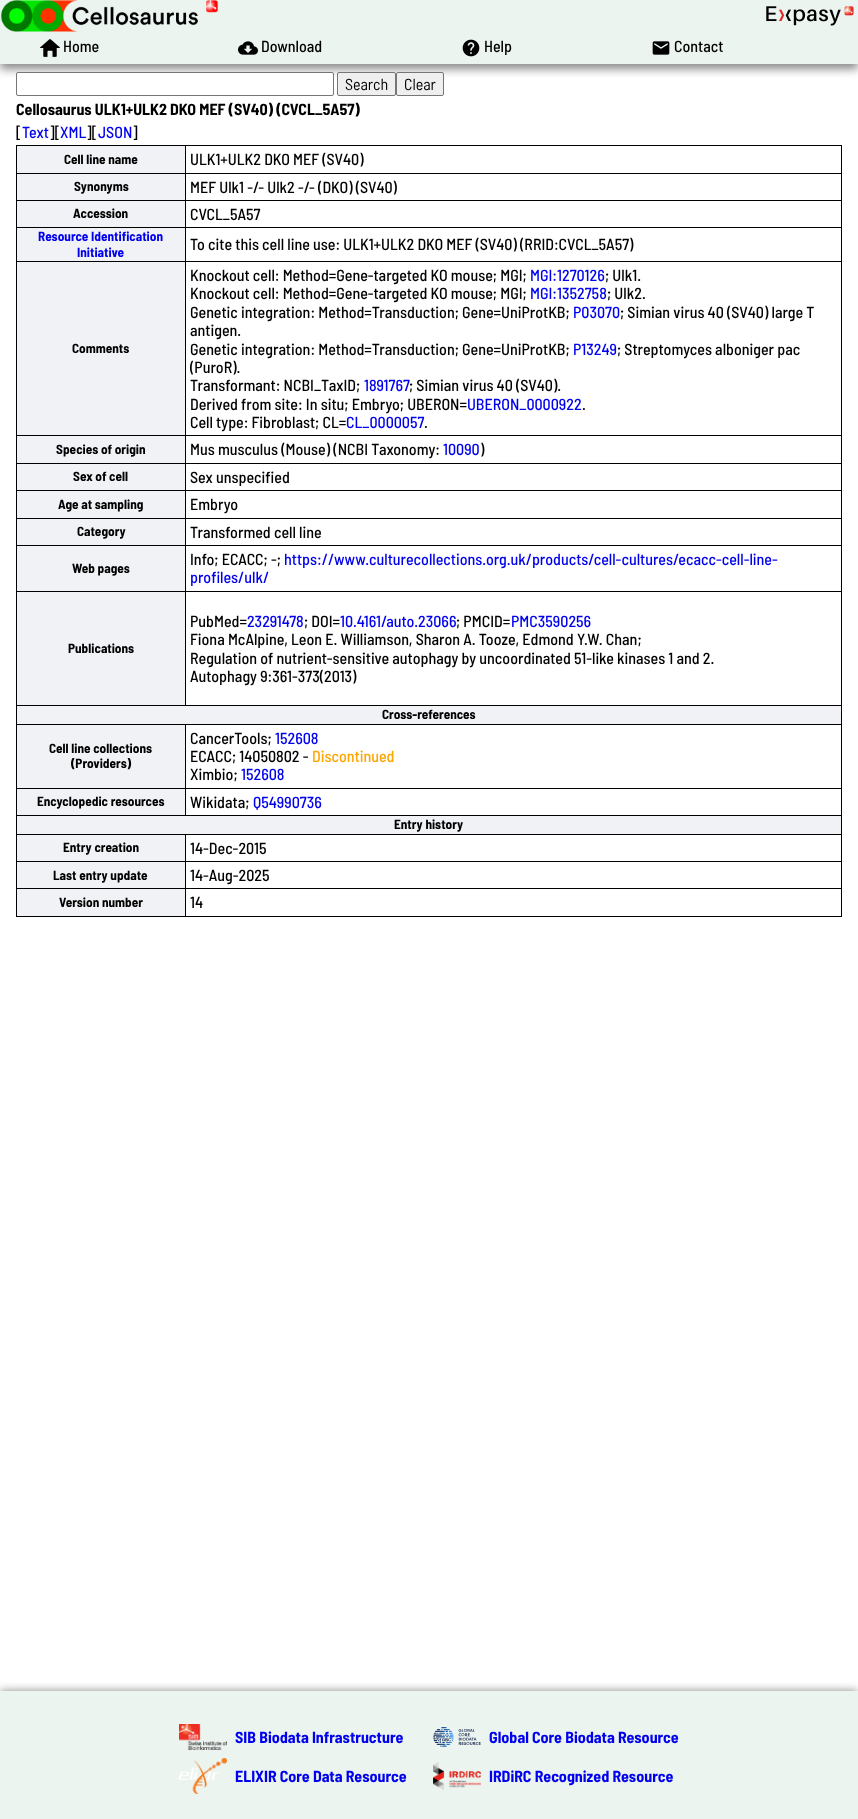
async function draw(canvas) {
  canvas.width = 858;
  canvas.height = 1819;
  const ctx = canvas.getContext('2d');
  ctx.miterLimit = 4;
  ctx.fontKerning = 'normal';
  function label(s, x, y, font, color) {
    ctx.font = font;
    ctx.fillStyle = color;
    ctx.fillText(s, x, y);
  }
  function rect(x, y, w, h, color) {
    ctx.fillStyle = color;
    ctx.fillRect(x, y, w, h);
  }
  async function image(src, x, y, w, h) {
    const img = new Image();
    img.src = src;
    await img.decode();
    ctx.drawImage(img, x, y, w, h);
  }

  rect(0, 0, 858, 1819, '#fff');
  ctx.fillStyle = '#888';
  ctx.filter = 'blur(5px)';
  ctx.beginPath();
  ctx.rect(0, 5, 858, 64);
  ctx.fill();
  ctx.filter = 'none';
  rect(0, 0, 858, 64, '#ecf4f0');
  await image('assets/img1.png', 0, 0, 219, 32);
  await image('assets/img2.png', 766, 6, 88, 20);
  await image('assets/img3.png', 40, 39, 20, 18);
  label('Home', 63, 52, '500 16px Barlow Semi Condensed', '#000');
  await image('assets/img4.png', 238, 41, 20, 14);
  label('Download', 261, 52, '500 16px Barlow Semi Condensed', '#000');
  await image('assets/img5.png', 462, 39, 18, 18);
  label('Help', 484, 52, '500 16px Barlow Semi Condensed', '#000');
  await image('assets/img6.png', 652, 41, 18, 14);
  label('Contact', 674, 52, '500 16px Barlow Semi Condensed', '#000');
  ctx.fillStyle = '#fff';
  ctx.beginPath();
  ctx.roundRect(16.5, 72.5, 317, 23, 1.5);
  ctx.fill();
  ctx.strokeStyle = '#767676';
  ctx.stroke();
  ctx.fillStyle = '#efefef';
  ctx.beginPath();
  ctx.roundRect(337.5, 72.5, 58, 23, 1.5);
  ctx.fill();
  ctx.stroke();
  label('Search', 345, 90, '16px Barlow Semi Condensed', '#000');
  ctx.fillStyle = '#efefef';
  ctx.beginPath();
  ctx.roundRect(396.5, 72.5, 47, 23, 1.5);
  ctx.fill();
  ctx.stroke();
  label('Clear', 404, 90, '16px Barlow Semi Condensed', '#000');
  label('Cellosaurus ULK1+ULK2 DKO MEF (SV40) (CVCL_5A57)', 16, 115, 'bold 16px Barlow Semi Condensed', '#000');
  label('[', 16, 138, '500 16px Barlow Semi Condensed', '#000');
  label('Text', 22, 138, '500 16px Barlow Semi Condensed', '#00e');
  label('][', 49, 138, '500 16px Barlow Semi Condensed', '#000');
  label('XML', 60, 138, '500 16px Barlow Semi Condensed', '#00e');
  label('][', 86, 138, '500 16px Barlow Semi Condensed', '#000');
  label('JSON', 98, 138, '500 16px Barlow Semi Condensed', '#00e');
  label(']', 132, 138, '500 16px Barlow Semi Condensed', '#000');
  rect(16, 145, 826, 1, '#000');
  rect(841, 145, 1, 772, '#000');
  rect(16, 916, 826, 1, '#000');
  rect(16, 145, 1, 772, '#000');
  rect(17, 146, 168, 27, '#f0f2f5');
  label('Cell line name', 64, 164, 'bold 13.25px Barlow Semi Condensed', '#000');
  label('ULK1+ULK2 DKO MEF (SV40)', 190, 165, '500 16px Barlow Semi Condensed', '#000');
  rect(16, 173, 826, 1, '#000');
  rect(17, 174, 168, 26, '#f0f2f5');
  label('Synonyms', 74, 191, 'bold 13.25px Barlow Semi Condensed', '#000');
  label('MEF Ulk1 -/- Ulk2 -/- (DKO) (SV40)', 190, 193, '500 16px Barlow Semi Condensed', '#000');
  rect(16, 200, 826, 1, '#000');
  rect(17, 201, 168, 26, '#f0f2f5');
  label('Accession', 73, 218, 'bold 13.25px Barlow Semi Condensed', '#000');
  label('CVCL_5A57', 190, 220, '500 16px Barlow Semi Condensed', '#000');
  rect(16, 227, 826, 1, '#000');
  rect(17, 228, 168, 33, '#f0f2f5');
  label('Resource Identification', 38, 241, 'bold 13.25px Barlow Semi Condensed', '#00e');
  label('Initiative', 77, 257, 'bold 13.25px Barlow Semi Condensed', '#00e');
  label('To cite this cell line use: ULK1+ULK2 DKO MEF (SV40) (RRID:CVCL_5A57)', 190, 250, '500 16px Barlow Semi Condensed', '#000');
  rect(16, 261, 826, 1, '#000');
  rect(17, 262, 168, 173, '#f0f2f5');
  label('Comments', 72, 353, 'bold 13.25px Barlow Semi Condensed', '#000');
  label('Knockout cell: Method=Gene-targeted KO mouse; MGI;', 190, 281, '500 16px Barlow Semi Condensed', '#000');
  label('MGI:1270126', 530, 281, '500 16px Barlow Semi Condensed', '#00e');
  label('; Ulk1.', 605, 281, '500 16px Barlow Semi Condensed', '#000');
  label('Knockout cell: Method=Gene-targeted KO mouse; MGI;', 190, 299, '500 16px Barlow Semi Condensed', '#000');
  label('MGI:1352758', 530, 299, '500 16px Barlow Semi Condensed', '#00e');
  label('; Ulk2.', 607, 299, '500 16px Barlow Semi Condensed', '#000');
  label('Genetic integration: Method=Transduction; Gene=UniProtKB;', 190, 318, '500 16px Barlow Semi Condensed', '#000');
  label('P03070', 573, 318, '500 16px Barlow Semi Condensed', '#00e');
  label('; Simian virus 40 (SV40) large T', 620, 318, '500 16px Barlow Semi Condensed', '#000');
  label('antigen.', 190, 336, '500 16px Barlow Semi Condensed', '#000');
  label('Genetic integration: Method=Transduction; Gene=UniProtKB;', 190, 355, '500 16px Barlow Semi Condensed', '#000');
  label('P13249', 573, 355, '500 16px Barlow Semi Condensed', '#00e');
  label('; Streptomyces alboniger pac', 617, 355, '500 16px Barlow Semi Condensed', '#000');
  label('(PuroR).', 190, 373, '500 16px Barlow Semi Condensed', '#000');
  label('Transformant: NCBI_TaxID;', 190, 391, '500 16px Barlow Semi Condensed', '#000');
  label('1891767', 364, 391, '500 16px Barlow Semi Condensed', '#00e');
  label('; Simian virus 40 (SV40).', 409, 391, '500 16px Barlow Semi Condensed', '#000');
  label('Derived from site: In situ; Embryo; UBERON=', 190, 410, '500 16px Barlow Semi Condensed', '#000');
  label('UBERON_0000922', 467, 410, '500 16px Barlow Semi Condensed', '#00e');
  label('.', 582, 410, '500 16px Barlow Semi Condensed', '#000');
  label('Cell type: Fibroblast; CL=', 190, 428, '500 16px Barlow Semi Condensed', '#000');
  label('CL_0000057', 346, 428, '500 16px Barlow Semi Condensed', '#00e');
  label('.', 424, 428, '500 16px Barlow Semi Condensed', '#000');
  rect(16, 435, 826, 1, '#000');
  rect(17, 436, 168, 27, '#f0f2f5');
  label('Species of origin', 56, 454, 'bold 13.25px Barlow Semi Condensed', '#000');
  label('Mus musculus (Mouse) (NCBI Taxonomy:', 190, 455, '500 16px Barlow Semi Condensed', '#000');
  label('10090', 443, 455, '500 16px Barlow Semi Condensed', '#00e');
  label(')', 480, 455, '500 16px Barlow Semi Condensed', '#000');
  rect(16, 463, 826, 1, '#000');
  rect(17, 464, 168, 26, '#f0f2f5');
  label('Sex of cell', 73, 481, 'bold 13.25px Barlow Semi Condensed', '#000');
  label('Sex unspecified', 190, 483, '500 16px Barlow Semi Condensed', '#000');
  rect(16, 490, 826, 1, '#000');
  rect(17, 491, 168, 27, '#f0f2f5');
  label('Age at sampling', 58, 509, 'bold 13.25px Barlow Semi Condensed', '#000');
  label('Embryo', 190, 510, '500 16px Barlow Semi Condensed', '#000');
  rect(16, 518, 826, 1, '#000');
  rect(17, 519, 168, 26, '#f0f2f5');
  label('Category', 77, 536, 'bold 13.25px Barlow Semi Condensed', '#000');
  label('Transformed cell line', 190, 538, '500 16px Barlow Semi Condensed', '#000');
  rect(16, 545, 826, 1, '#000');
  rect(17, 546, 168, 45, '#f0f2f5');
  label('Web pages', 72, 573, 'bold 13.25px Barlow Semi Condensed', '#000');
  label('Info; ECACC; -;', 190, 565, '500 16px Barlow Semi Condensed', '#000');
  label('https://www.culturecollections.org.uk/products/cell-cultures/ecacc-cell-line-', 284, 565, '500 16px Barlow Semi Condensed', '#00e');
  label('profiles/ulk/', 190, 583, '500 16px Barlow Semi Condensed', '#00e');
  rect(16, 591, 826, 1, '#000');
  rect(17, 592, 168, 113, '#f0f2f5');
  label('Publications', 68, 653, 'bold 13.25px Barlow Semi Condensed', '#000');
  rect(16, 705, 826, 1, '#000');
  rect(185, 145, 1, 561, '#000');
  label('PubMed=', 190, 627, '500 16px Barlow Semi Condensed', '#000');
  label('23291478', 247, 627, '500 16px Barlow Semi Condensed', '#00e');
  label('; DOI=', 304, 627, '500 16px Barlow Semi Condensed', '#000');
  label('10.4161/auto.23066', 340, 627, '500 16px Barlow Semi Condensed', '#00e');
  label('; PMCID=', 456, 627, '500 16px Barlow Semi Condensed', '#000');
  label('PMC3590256', 511, 627, '500 16px Barlow Semi Condensed', '#00e');
  label('Fiona McAlpine, Leon E. Williamson, Sharon A. Tooze, Edmond Y.W. Chan;', 190, 645, '500 16px Barlow Semi Condensed', '#000');
  label('Regulation of nutrient-sensitive autophagy by uncoordinated 51-like kinases 1 and 2.', 190, 664, '500 16px Barlow Semi Condensed', '#000');
  label('Autophagy 9:361-373(2013)', 190, 682, '500 16px Barlow Semi Condensed', '#000');
  rect(17, 706, 824, 18, '#f0f2f5');
  label('Cross-references', 382, 719, 'bold 13.25px Barlow Semi Condensed', '#000');
  rect(16, 724, 826, 1, '#000');
  rect(17, 725, 168, 63, '#f0f2f5');
  label('Cell line collections', 49, 753, 'bold 13.25px Barlow Semi Condensed', '#000');
  label('(Providers)', 71, 768, 'bold 13.25px Barlow Semi Condensed', '#000');
  label('CancerTools;', 190, 744, '500 16px Barlow Semi Condensed', '#000');
  label('152608', 275, 744, '500 16px Barlow Semi Condensed', '#00e');
  label('ECACC; 14050802 -', 190, 762, '500 16px Barlow Semi Condensed', '#000');
  label('Discontinued', 312, 762, '500 16px Barlow Semi Condensed', '#ffa500');
  label('Ximbio;', 190, 780, '500 16px Barlow Semi Condensed', '#000');
  label('152608', 241, 780, '500 16px Barlow Semi Condensed', '#00e');
  rect(16, 788, 826, 1, '#000');
  rect(17, 789, 168, 26, '#f0f2f5');
  label('Encyclopedic resources', 37, 806, 'bold 13.25px Barlow Semi Condensed', '#000');
  rect(16, 815, 826, 1, '#000');
  rect(185, 724, 1, 92, '#000');
  label('Wikidata;', 190, 808, '500 16px Barlow Semi Condensed', '#000');
  label('Q54990736', 253, 808, '500 16px Barlow Semi Condensed', '#00e');
  rect(17, 816, 824, 18, '#f0f2f5');
  label('Entry history', 394, 829, 'bold 13.25px Barlow Semi Condensed', '#000');
  rect(16, 834, 826, 1, '#000');
  rect(17, 835, 168, 26, '#f0f2f5');
  label('Entry creation', 63, 852, 'bold 13.25px Barlow Semi Condensed', '#000');
  label('14-Dec-2015', 190, 854, '500 16px Barlow Semi Condensed', '#000');
  rect(16, 861, 826, 1, '#000');
  rect(17, 862, 168, 26, '#f0f2f5');
  label('Last entry update', 53, 880, 'bold 13.25px Barlow Semi Condensed', '#000');
  label('14-Aug-2025', 190, 881, '500 16px Barlow Semi Condensed', '#000');
  rect(16, 888, 826, 1, '#000');
  rect(17, 889, 168, 27, '#f0f2f5');
  label('Version number', 59, 907, 'bold 13.25px Barlow Semi Condensed', '#000');
  rect(185, 834, 1, 83, '#000');
  label('14', 190, 908, '500 16px Barlow Semi Condensed', '#000');
  ctx.fillStyle = '#888';
  ctx.filter = 'blur(5px)';
  ctx.beginPath();
  ctx.rect(0, 1691, 858, 128);
  ctx.fill();
  ctx.filter = 'none';
  rect(0, 1691, 858, 128, '#ecf4f0');
  await image('assets/img7.png', 179, 1724, 48, 26);
  label('SIB Biodata Infrastructure', 235, 1743, 'bold 16px Barlow Semi Condensed', '#00e');
  await image('assets/img8.png', 433, 1727, 48, 20);
  label('Global Core Biodata Resource', 489, 1743, 'bold 16px Barlow Semi Condensed', '#00e');
  await image('assets/img9.png', 179, 1758, 48, 36);
  label('ELIXIR Core Data Resource', 235, 1782, 'bold 16px Barlow Semi Condensed', '#00e');
  await image('assets/img10.png', 433, 1762, 48, 28);
  label('IRDiRC Recognized Resource', 489, 1782, 'bold 16px Barlow Semi Condensed', '#00e');
}

draw(document.querySelector('canvas'));
